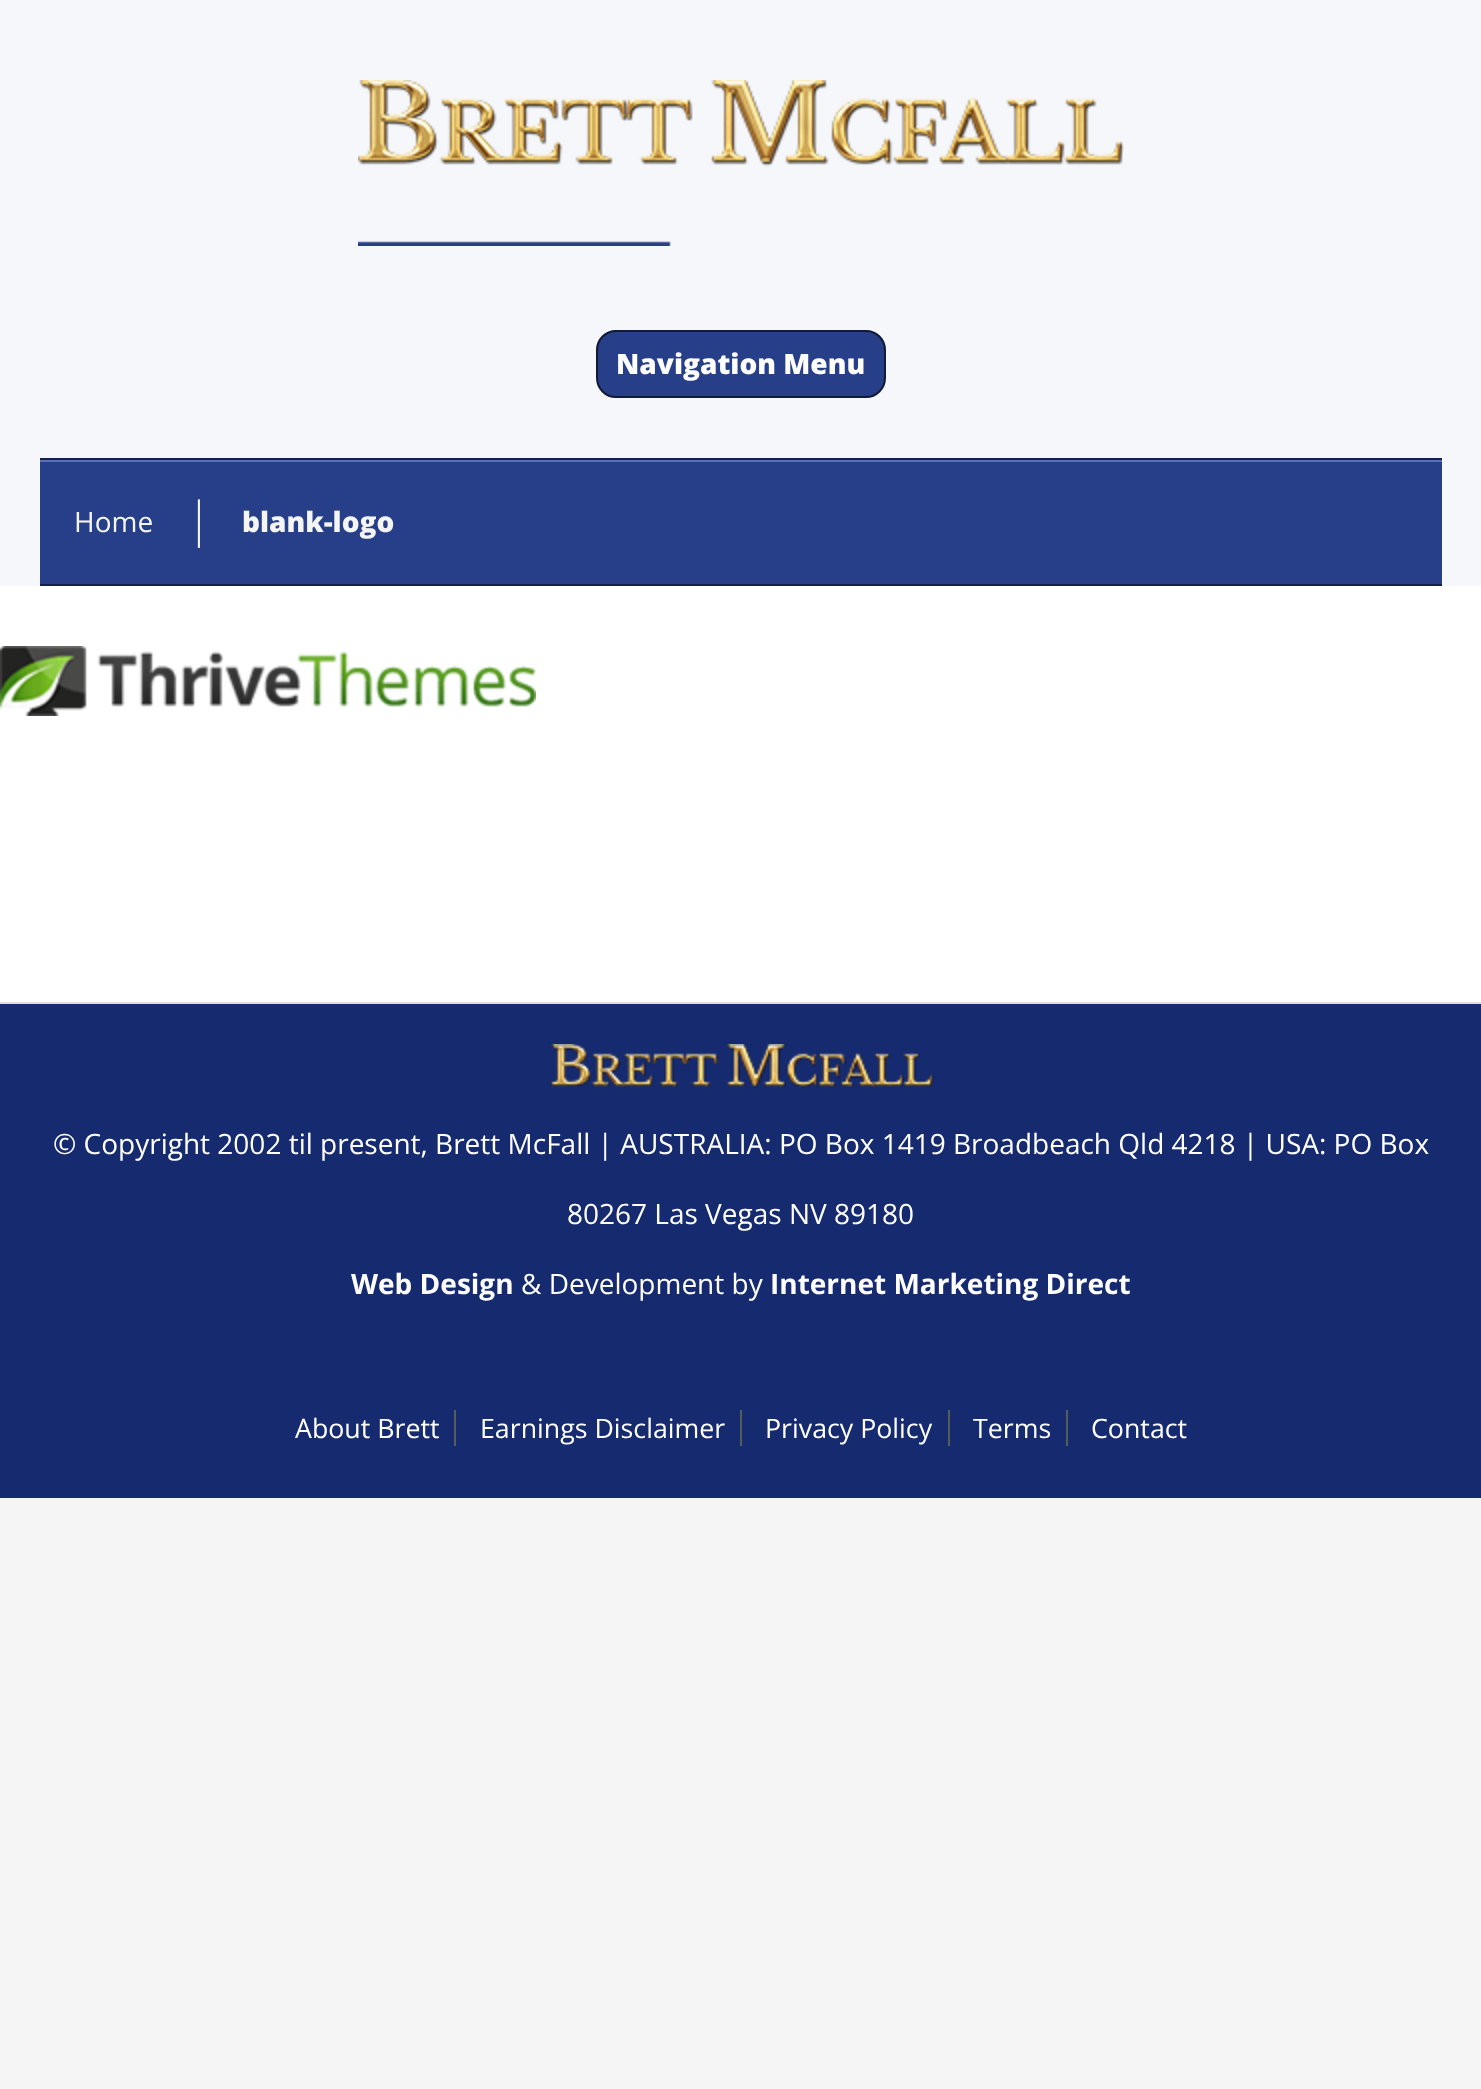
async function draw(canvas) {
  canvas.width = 1481;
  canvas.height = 2089;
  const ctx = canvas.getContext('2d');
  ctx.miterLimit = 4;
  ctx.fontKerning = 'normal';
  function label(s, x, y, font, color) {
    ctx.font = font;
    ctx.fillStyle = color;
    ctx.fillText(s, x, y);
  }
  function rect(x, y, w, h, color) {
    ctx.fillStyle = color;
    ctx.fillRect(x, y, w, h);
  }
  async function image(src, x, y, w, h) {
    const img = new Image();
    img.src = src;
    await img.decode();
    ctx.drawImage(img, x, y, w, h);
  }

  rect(0, 0, 1481, 2089, '#f5f5f5');
  rect(0, 0, 1481, 586, '#f6f7fb');
  await image('assets/img1.png', 358, 80, 766, 166);
  ctx.fillStyle = '#273e88';
  ctx.beginPath();
  ctx.roundRect(597, 331, 288, 66, 19);
  ctx.fill();
  ctx.strokeStyle = '#101935';
  ctx.lineWidth = 2;
  ctx.stroke();
  label('Navigation Menu', 616, 374, '800 28px Open Sans', '#fff');
  rect(40, 462, 1402, 122, '#273e88');
  rect(40, 460, 1402, 2, '#5670bd');
  rect(40, 458, 1402, 2, '#142148');
  rect(40, 584, 1402, 2, '#142148');
  label('Home', 74, 532, '28px Open Sans', '#f5f5f5');
  label('|', 186, 536, '300 48px Open Sans', '#f5f5f5');
  label('blank-logo', 242, 532, '800 28px Open Sans', '#f5f5f5');
  rect(0, 586, 1481, 416, '#fff');
  rect(0, 1002, 1481, 2, '#e0dddd');
  await image('assets/img2.png', 0, 646, 536, 70);
  rect(0, 1004, 1481, 494, '#162a70');
  await image('assets/img3.png', 550, 1044, 384, 44);
  label('© Copyright 2002 til present, Brett McFall | AUSTRALIA: PO Box 1419 Broadbeach Qld 4218 | USA: PO Box', 53, 1154, '28px Open Sans', '#fff');
  label('80267 Las Vegas NV 89180', 567, 1224, '28px Open Sans', '#fff');
  label('Web Design', 351, 1294, 'bold 28px Open Sans', '#fff');
  label('& Development by', 521, 1294, '28px Open Sans', '#fff');
  label('Internet Marketing Direct', 770, 1294, 'bold 28px Open Sans', '#fff');
  label('About Brett', 295, 1438, '26.75px Open Sans', '#fff');
  rect(454, 1410, 2, 36, '#555e58');
  label('Earnings Disclaimer', 480, 1438, '26.75px Open Sans', '#fff');
  rect(740, 1410, 2, 36, '#555e58');
  label('Privacy Policy', 765, 1438, '26.75px Open Sans', '#fff');
  rect(948, 1410, 2, 36, '#555e58');
  label('Terms', 973, 1438, '26.75px Open Sans', '#fff');
  rect(1066, 1410, 2, 36, '#555e58');
  label('Contact', 1091, 1438, '26.75px Open Sans', '#fff');
}

draw(document.querySelector('canvas'));
